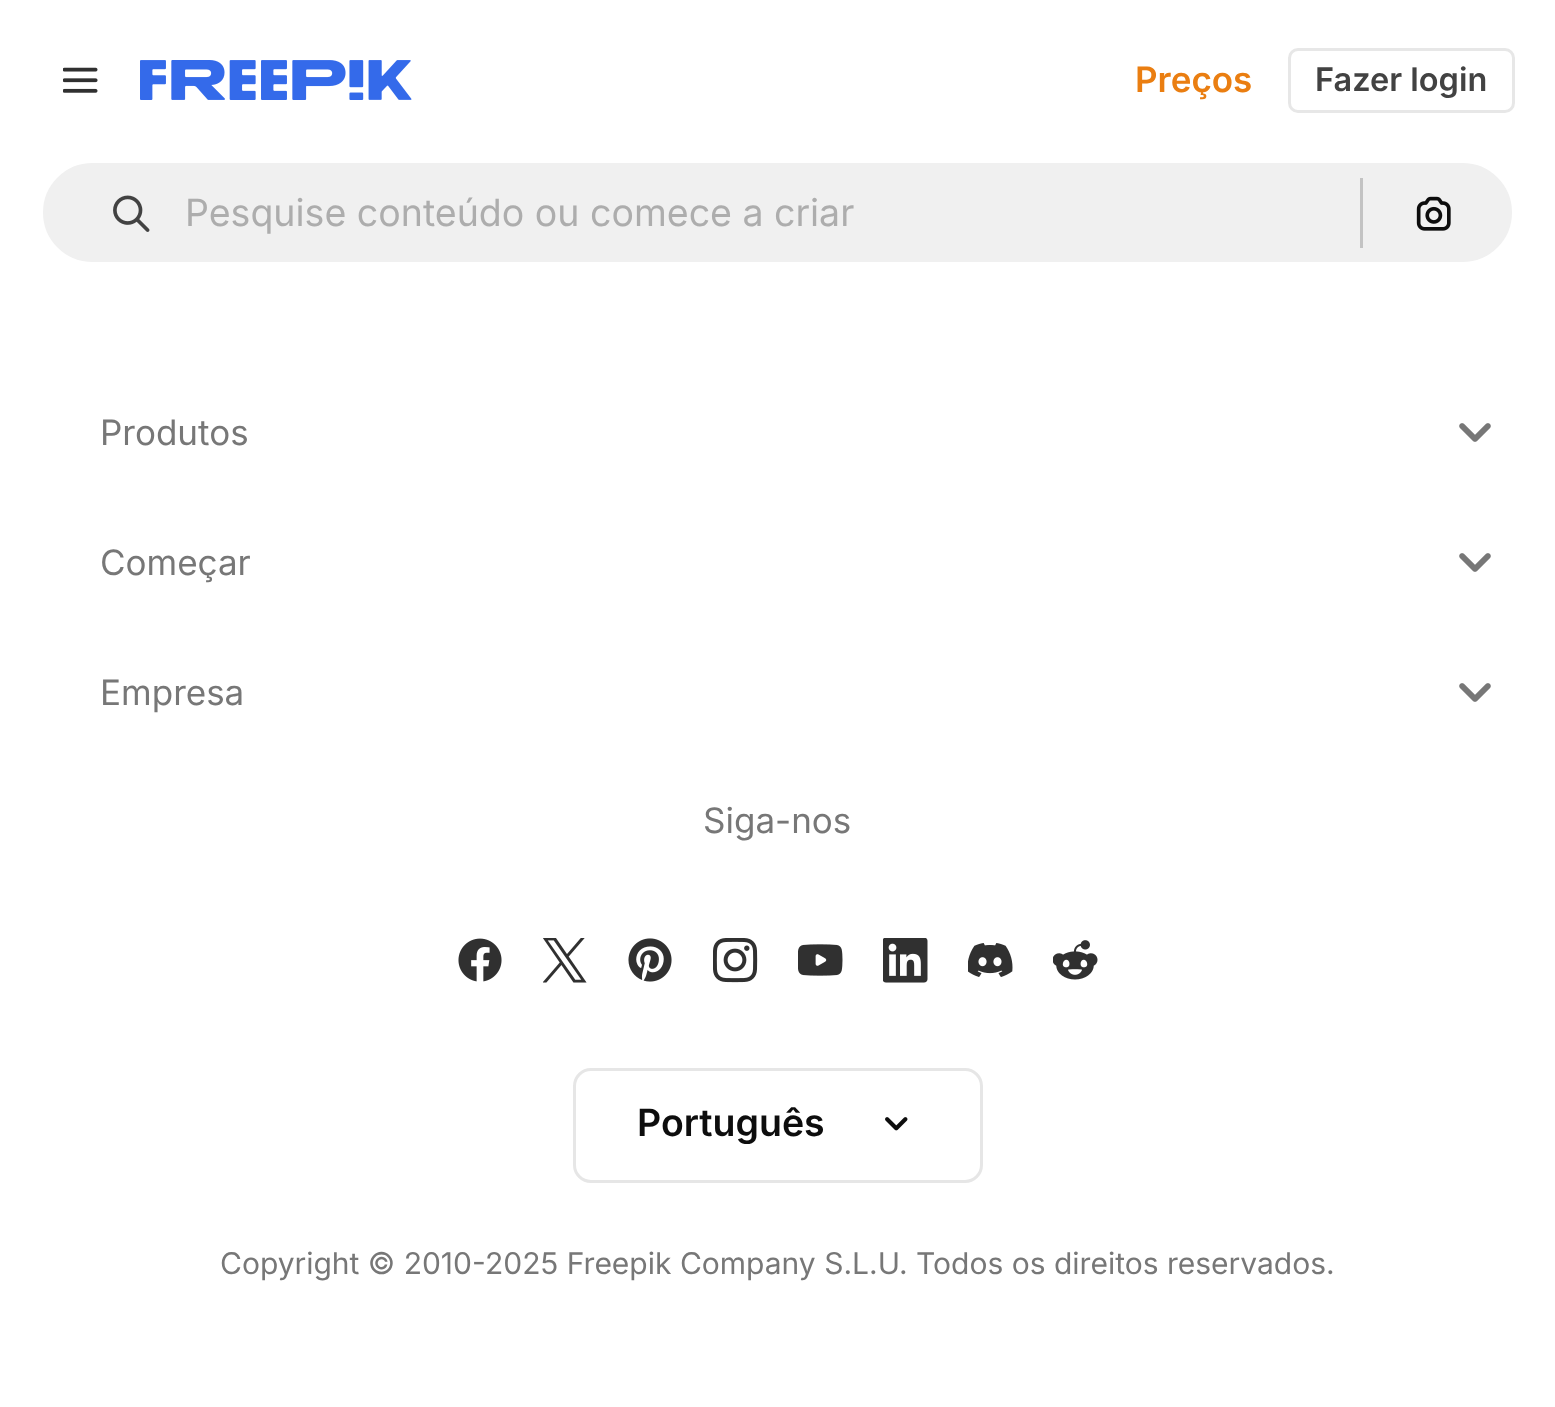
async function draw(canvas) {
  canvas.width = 1555;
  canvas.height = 1407;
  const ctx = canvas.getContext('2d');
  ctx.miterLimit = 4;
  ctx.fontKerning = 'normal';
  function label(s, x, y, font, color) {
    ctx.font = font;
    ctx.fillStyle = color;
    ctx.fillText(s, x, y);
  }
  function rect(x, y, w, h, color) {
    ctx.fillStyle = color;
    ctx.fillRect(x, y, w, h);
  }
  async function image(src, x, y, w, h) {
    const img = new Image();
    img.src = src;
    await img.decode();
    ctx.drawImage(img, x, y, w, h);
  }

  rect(0, 0, 1555, 1407, '#fff');
  await image('assets/img1.png', 63, 67, 35, 26);
  await image('assets/img2.png', 140, 60, 272, 40);
  label('Preços', 1135, 92, '600 35px Inter', '#ea7e11');
  ctx.beginPath();
  ctx.roundRect(1289.5, 49.5, 224, 62, 8.5);
  ctx.strokeStyle = '#e7e7e7';
  ctx.lineWidth = 3;
  ctx.stroke();
  label('Fazer login', 1315, 91, '600 32.5px Inter', '#424242');
  ctx.fillStyle = '#f0f0f0';
  ctx.beginPath();
  ctx.roundRect(41.5, 161.5, 1472, 102, 51);
  ctx.fill();
  ctx.strokeStyle = '#fff';
  ctx.stroke();
  await image('assets/img3.png', 113, 195, 37, 37);
  label('Pesquise conteúdo ou comece a criar', 185, 226, '37.5px Inter', '#adadad');
  rect(1360, 178, 3, 70, '#c3c3c3');
  await image('assets/img4.png', 1416, 196, 35, 35);
  label('Produtos', 100, 445, '35px Inter', '#777');
  await image('assets/img5.png', 1459, 423, 32, 19);
  label('Começar', 100, 575, '35px Inter', '#777');
  await image('assets/img5.png', 1459, 553, 32, 19);
  label('Empresa', 100, 705, '35px Inter', '#777');
  await image('assets/img5.png', 1459, 683, 32, 19);
  label('Siga-nos', 703, 833, '35px Inter', '#777');
  await image('assets/img6.png', 458, 938, 44, 44);
  await image('assets/img7.png', 543, 938, 44, 45);
  await image('assets/img8.png', 628, 938, 44, 44);
  await image('assets/img9.png', 713, 938, 45, 45);
  await image('assets/img10.png', 798, 944, 45, 32);
  await image('assets/img11.png', 883, 938, 45, 45);
  await image('assets/img12.png', 968, 943, 45, 34);
  await image('assets/img13.png', 1053, 940, 45, 40);
  ctx.beginPath();
  ctx.roundRect(574.5, 1069.5, 407, 112, 16.5);
  ctx.strokeStyle = '#e6e6e6';
  ctx.stroke();
  label('Português', 637, 1136, '600 37.5px Inter', '#0d0d0d');
  await image('assets/img14.png', 885, 1117, 23, 14);
  label('Copyright © 2010-', 220, 1274, '30px Inter', '#777');
  label('2025 Freepik Company S.L.U. Todos os direitos reservados.', 485, 1274, '30px Inter', '#777');
}

draw(document.querySelector('canvas'));
